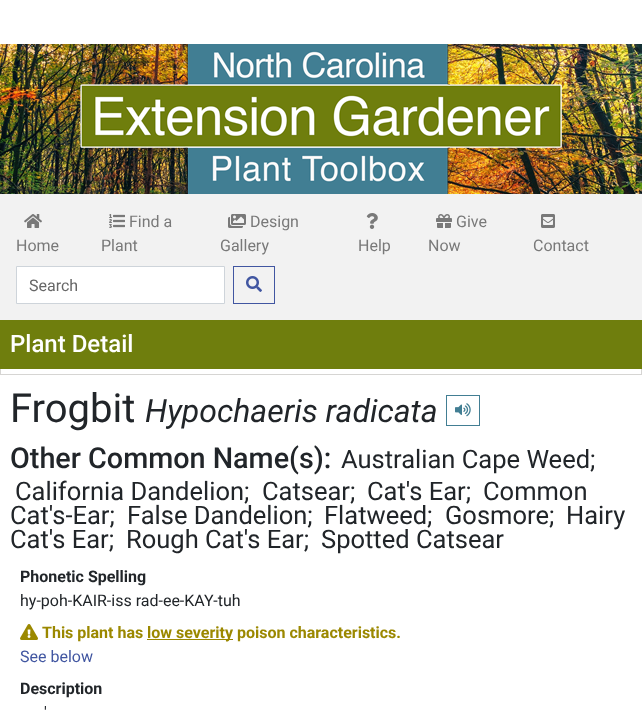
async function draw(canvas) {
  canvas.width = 642;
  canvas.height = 714;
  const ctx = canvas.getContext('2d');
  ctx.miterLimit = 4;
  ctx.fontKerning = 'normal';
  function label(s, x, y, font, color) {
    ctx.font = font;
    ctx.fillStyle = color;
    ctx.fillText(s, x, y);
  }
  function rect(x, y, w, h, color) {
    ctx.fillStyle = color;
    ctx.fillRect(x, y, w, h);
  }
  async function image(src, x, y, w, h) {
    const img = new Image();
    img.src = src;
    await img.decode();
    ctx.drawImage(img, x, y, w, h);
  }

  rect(0, 0, 642, 714, '#fff');
  await image('assets/img1.png', 0, 44, 642, 150);
  await image('assets/img2.png', 80, 44, 482, 150);
  rect(0, 194, 642, 126, '#f2f2f2');
  await image('assets/img3.png', 24, 214, 18, 14);
  label('Home', 16, 251, '16px Roboto', '#797979');
  await image('assets/img4.png', 109, 214, 16, 14);
  label('Find a', 129, 227, '16px Roboto', '#797979');
  label('Plant', 101, 251, '16px Roboto', '#797979');
  await image('assets/img5.png', 228, 214, 18, 14);
  label('Design', 250, 227, '16px Roboto', '#797979');
  label('Gallery', 220, 251, '16px Roboto', '#797979');
  await image('assets/img6.png', 366, 213, 12, 16);
  label('Help', 358, 251, '16px Roboto', '#797979');
  await image('assets/img7.png', 436, 214, 16, 14);
  label('Give', 456, 227, '16px Roboto', '#797979');
  label('Now', 428, 251, '16px Roboto', '#797979');
  await image('assets/img8.png', 541, 214, 14, 14);
  label('Contact', 533, 251, '16px Roboto', '#797979');
  ctx.fillStyle = '#fff';
  ctx.beginPath();
  ctx.rect(16.5, 266.5, 208, 37);
  ctx.fill();
  ctx.strokeStyle = '#ced4da';
  ctx.stroke();
  label('Search', 29, 291, '16px Roboto', '#666');
  ctx.strokeStyle = '#4156a1';
  ctx.strokeRect(233.5, 266.5, 41, 37);
  await image('assets/img9.png', 246, 276, 16, 16);
  rect(641, 369, 1, 6, '#d6d5d3');
  rect(0, 374, 642, 1, '#d6d5d3');
  rect(0, 369, 1, 6, '#d6d5d3');
  rect(0, 320, 642, 49, '#6f7e0d');
  label('Plant Detail', 10, 352, '500 24px Roboto', '#fff');
  label('Frogbit', 10, 422, '40px Roboto', '#212529');
  label('Hypochaeris radicata', 145, 422, 'italic 32px Roboto', '#212529');
  ctx.strokeStyle = '#427e93';
  ctx.strokeRect(446.5, 395.5, 33, 30);
  await image('assets/img10.png', 455, 403, 16, 14);
  label('Other Common Name(s):', 10, 468, '500 28.75px Roboto', '#212529');
  label('Australian Cape Weed;', 341, 468, '25.5px Roboto', '#212529');
  label('California Dandelion;', 15, 500, '25.5px Roboto', '#212529');
  label('Catsear;', 262, 500, '25.5px Roboto', '#212529');
  label('Cat\'s Ear;', 367, 500, '25.5px Roboto', '#212529');
  label('Common', 483, 500, '25.5px Roboto', '#212529');
  label('Cat\'s-Ear;', 10, 524, '25.5px Roboto', '#212529');
  label('False Dandelion;', 127, 524, '25.5px Roboto', '#212529');
  label('Flatweed;', 324, 524, '25.5px Roboto', '#212529');
  label('Gosmore;', 445, 524, '25.5px Roboto', '#212529');
  label('Hairy', 566, 524, '25.5px Roboto', '#212529');
  label('Cat\'s Ear;', 10, 548, '25.5px Roboto', '#212529');
  label('Rough Cat\'s Ear;', 126, 548, '25.5px Roboto', '#212529');
  label('Spotted Catsear', 321, 548, '25.5px Roboto', '#212529');
  label('Phonetic Spelling', 20, 582, 'bold 16px Roboto', '#212529');
  label('hy-poh-KAIR-iss rad-ee-KAY-tuh', 20, 606, '16px Roboto', '#212529');
  await image('assets/img11.png', 20, 624, 18, 16);
  label('This plant has', 42, 638, 'bold 16px Roboto', '#9b8800');
  rect(147, 639, 86, 1, '#9b8800');
  label('low severity poison characteristics.', 147, 638, 'bold 16px Roboto', '#9b8800');
  label('See below', 20, 662, '16px Roboto', '#4156a1');
  label('Description', 20, 694, 'bold 16px Roboto', '#212529');
  label('\'', 44, 718, '16px Roboto', '#212529');
}

draw(document.querySelector('canvas'));
